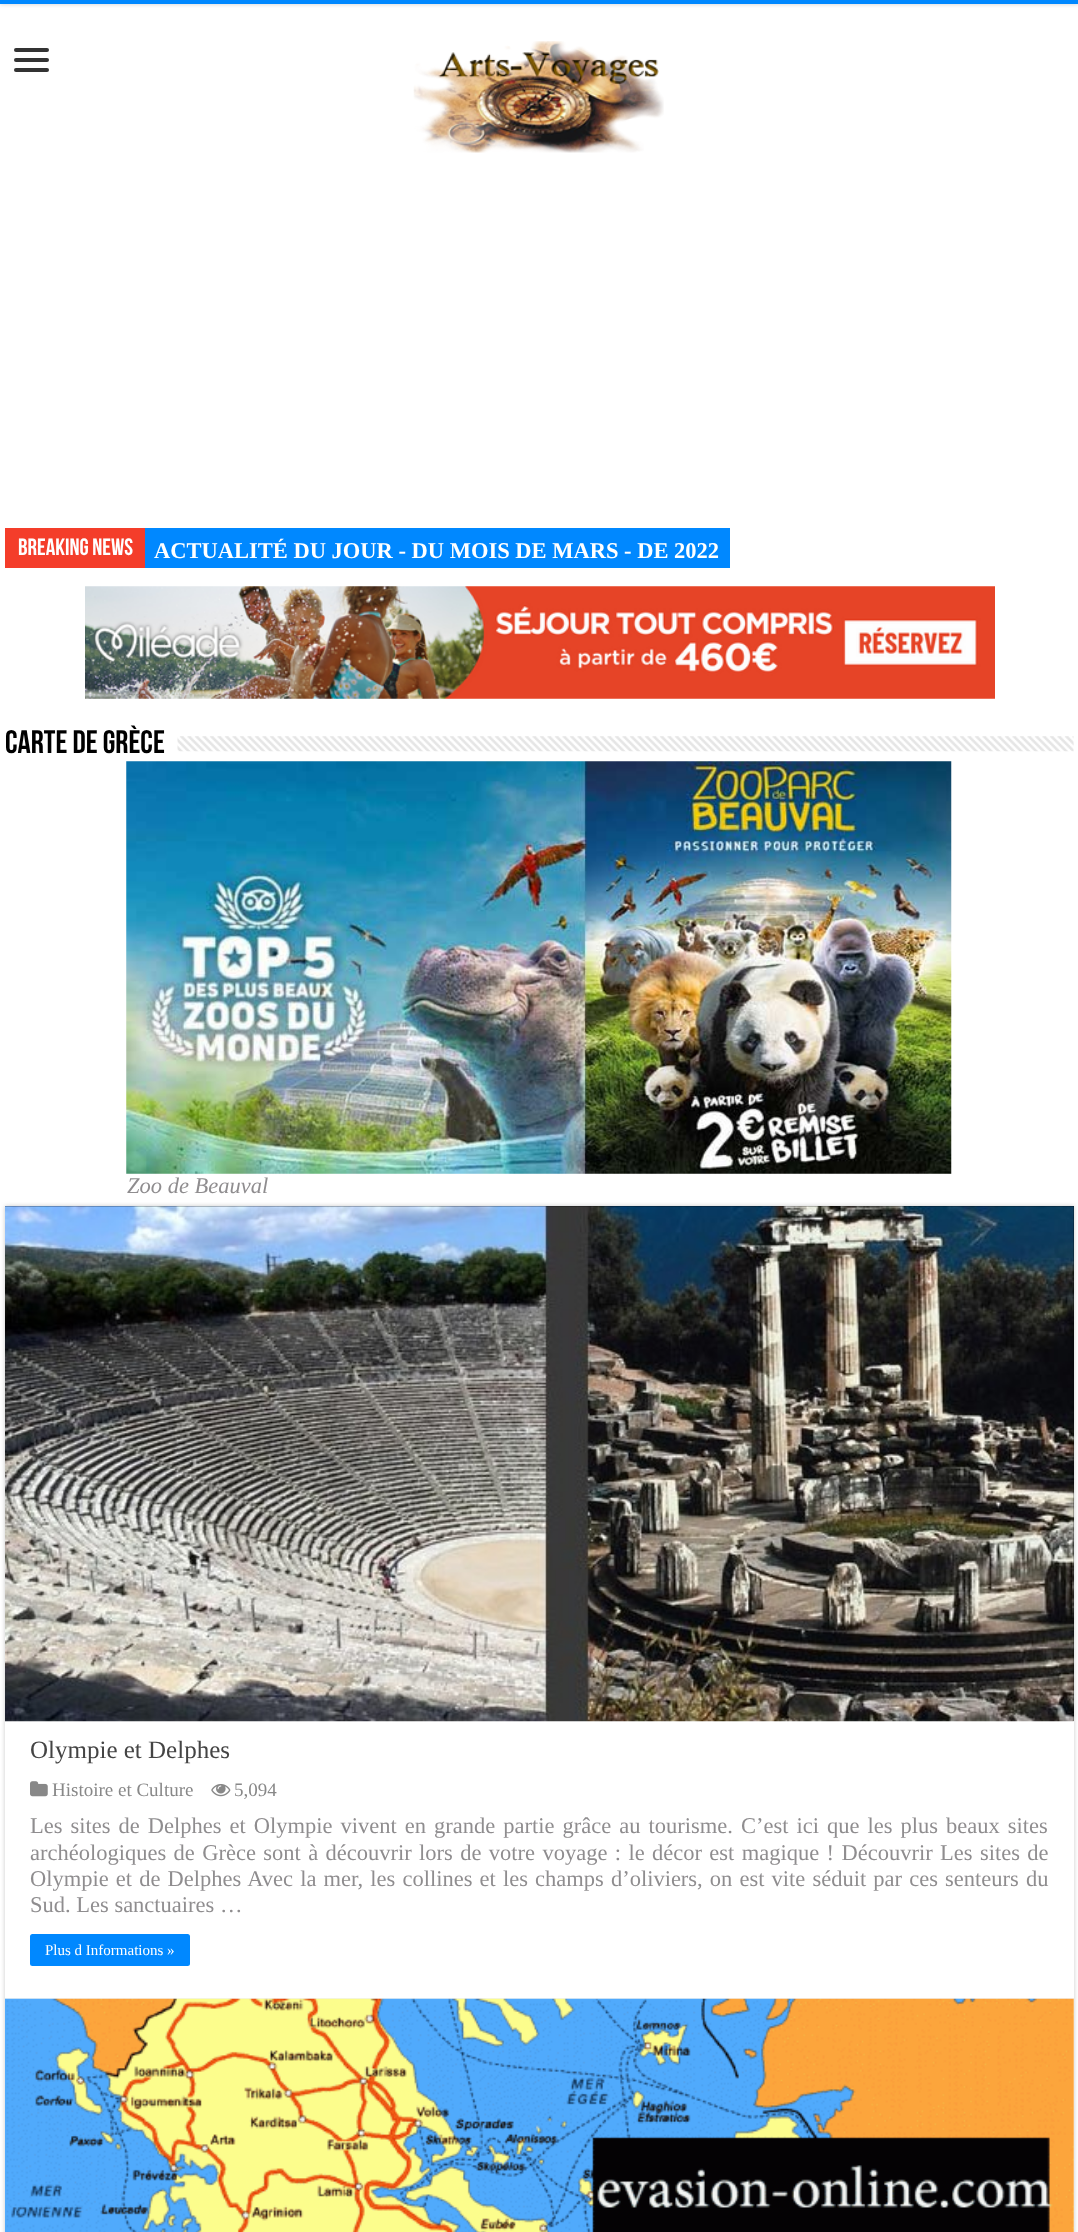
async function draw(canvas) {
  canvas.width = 1078;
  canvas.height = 2232;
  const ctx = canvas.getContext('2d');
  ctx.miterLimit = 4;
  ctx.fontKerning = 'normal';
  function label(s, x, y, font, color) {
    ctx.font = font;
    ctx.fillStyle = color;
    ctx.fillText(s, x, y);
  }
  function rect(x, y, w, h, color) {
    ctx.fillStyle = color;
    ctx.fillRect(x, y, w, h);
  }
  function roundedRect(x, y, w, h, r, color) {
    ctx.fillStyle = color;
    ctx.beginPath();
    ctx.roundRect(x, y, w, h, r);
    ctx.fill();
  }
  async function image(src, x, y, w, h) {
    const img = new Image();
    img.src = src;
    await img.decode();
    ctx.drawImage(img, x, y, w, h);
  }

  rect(0, 0, 1078, 2232, '#fff');
  ctx.fillStyle = '#cacaca';
  ctx.filter = 'blur(2px)';
  ctx.beginPath();
  ctx.rect(0, 0, 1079, 4);
  ctx.fill();
  ctx.filter = 'none';
  rect(0, 0, 1078, 4, '#08f');
  roundedRect(14, 48, 35, 4, 2, '#333');
  roundedRect(14, 58, 35, 4, 2, '#333');
  roundedRect(14, 68, 35, 4, 2, '#333');
  await image('assets/img1.png', 413, 41, 251, 112);
  ctx.fillStyle = '#cacaca';
  ctx.filter = 'blur(0.5px)';
  ctx.beginPath();
  ctx.rect(5, 528, 1069, 40);
  ctx.fill();
  ctx.filter = 'none';
  rect(730, 528, 344, 40, '#fff');
  rect(5, 528, 140, 40, '#f43d2a');
  label('Breaking News', 18, 555, 'bold 23.5px Bebas Neue', '#fff');
  rect(145, 528, 585, 40, '#08f');
  label('ACTUALITÉ DU JOUR - DU MOIS DE MARS - DE 2022', 154, 558, 'bold 22.5px Liberation Serif', '#fff');
  await image('assets/img2.png', 85, 586, 910, 113);
  label('Carte de Grèce', 5, 753, 'bold 32.5px Bebas Neue', '#000');
  await image('assets/img3.png', 177, 736, 897, 16);
  await image('assets/img4.png', 126, 761, 826, 413);
  label('Zoo de Beauval', 127, 1193, 'italic 22.5px Liberation Serif', '#8f8d8f');
  ctx.fillStyle = '#cacaca';
  ctx.filter = 'blur(2px)';
  ctx.beginPath();
  ctx.rect(5, 1206, 1069, 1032);
  ctx.fill();
  ctx.filter = 'none';
  rect(5, 1721, 1069, 511, '#fff');
  rect(5, 1998, 1069, 1, '#f2f2f2');
  rect(5, 1206, 1069, 515, '#000');
  await image('assets/img5.png', 5, 1206, 1069, 516);
  label('Olympie et Delphes', 30, 1758, '25px Liberation Serif', '#444');
  await image('assets/img6.png', 30, 1781, 18, 16);
  label('Histoire et Culture', 52, 1796, '19px Liberation Serif', '#888');
  await image('assets/img7.png', 211, 1784, 20, 13);
  label('5,094', 234, 1796, '19px Liberation Serif', '#888');
  ctx.wordSpacing = '2.4px';
  label('Les sites de Delphes et Olympie vivent en grande partie grâce au tourisme. C’est ici que les plus beaux sites', 30, 1833, '22.5px Liberation Serif', '#8f8d8f');
  ctx.wordSpacing = '1.75px';
  label('archéologiques de Grèce sont à découvrir lors de votre voyage : le décor est magique ! Découvrir Les sites de', 30, 1860, '22.5px Liberation Serif', '#8f8d8f');
  ctx.wordSpacing = '1.5px';
  label('Olympie et de Delphes Avec la mer, les collines et les champs d’oliviers, on est vite séduit par ces senteurs du', 30, 1886, '22.5px Liberation Serif', '#8f8d8f');
  ctx.wordSpacing = '0px';
  label('Sud. Les sanctuaires …', 30, 1912, '22.5px Liberation Serif', '#8f8d8f');
  roundedRect(30, 1934, 160, 32, 2.5, '#08f');
  label('Plus d Informations »', 45, 1955, '15px Liberation Serif', '#fff');
  await image('assets/img8.png', 5, 1998, 1069, 234);
}

draw(document.querySelector('canvas'));
